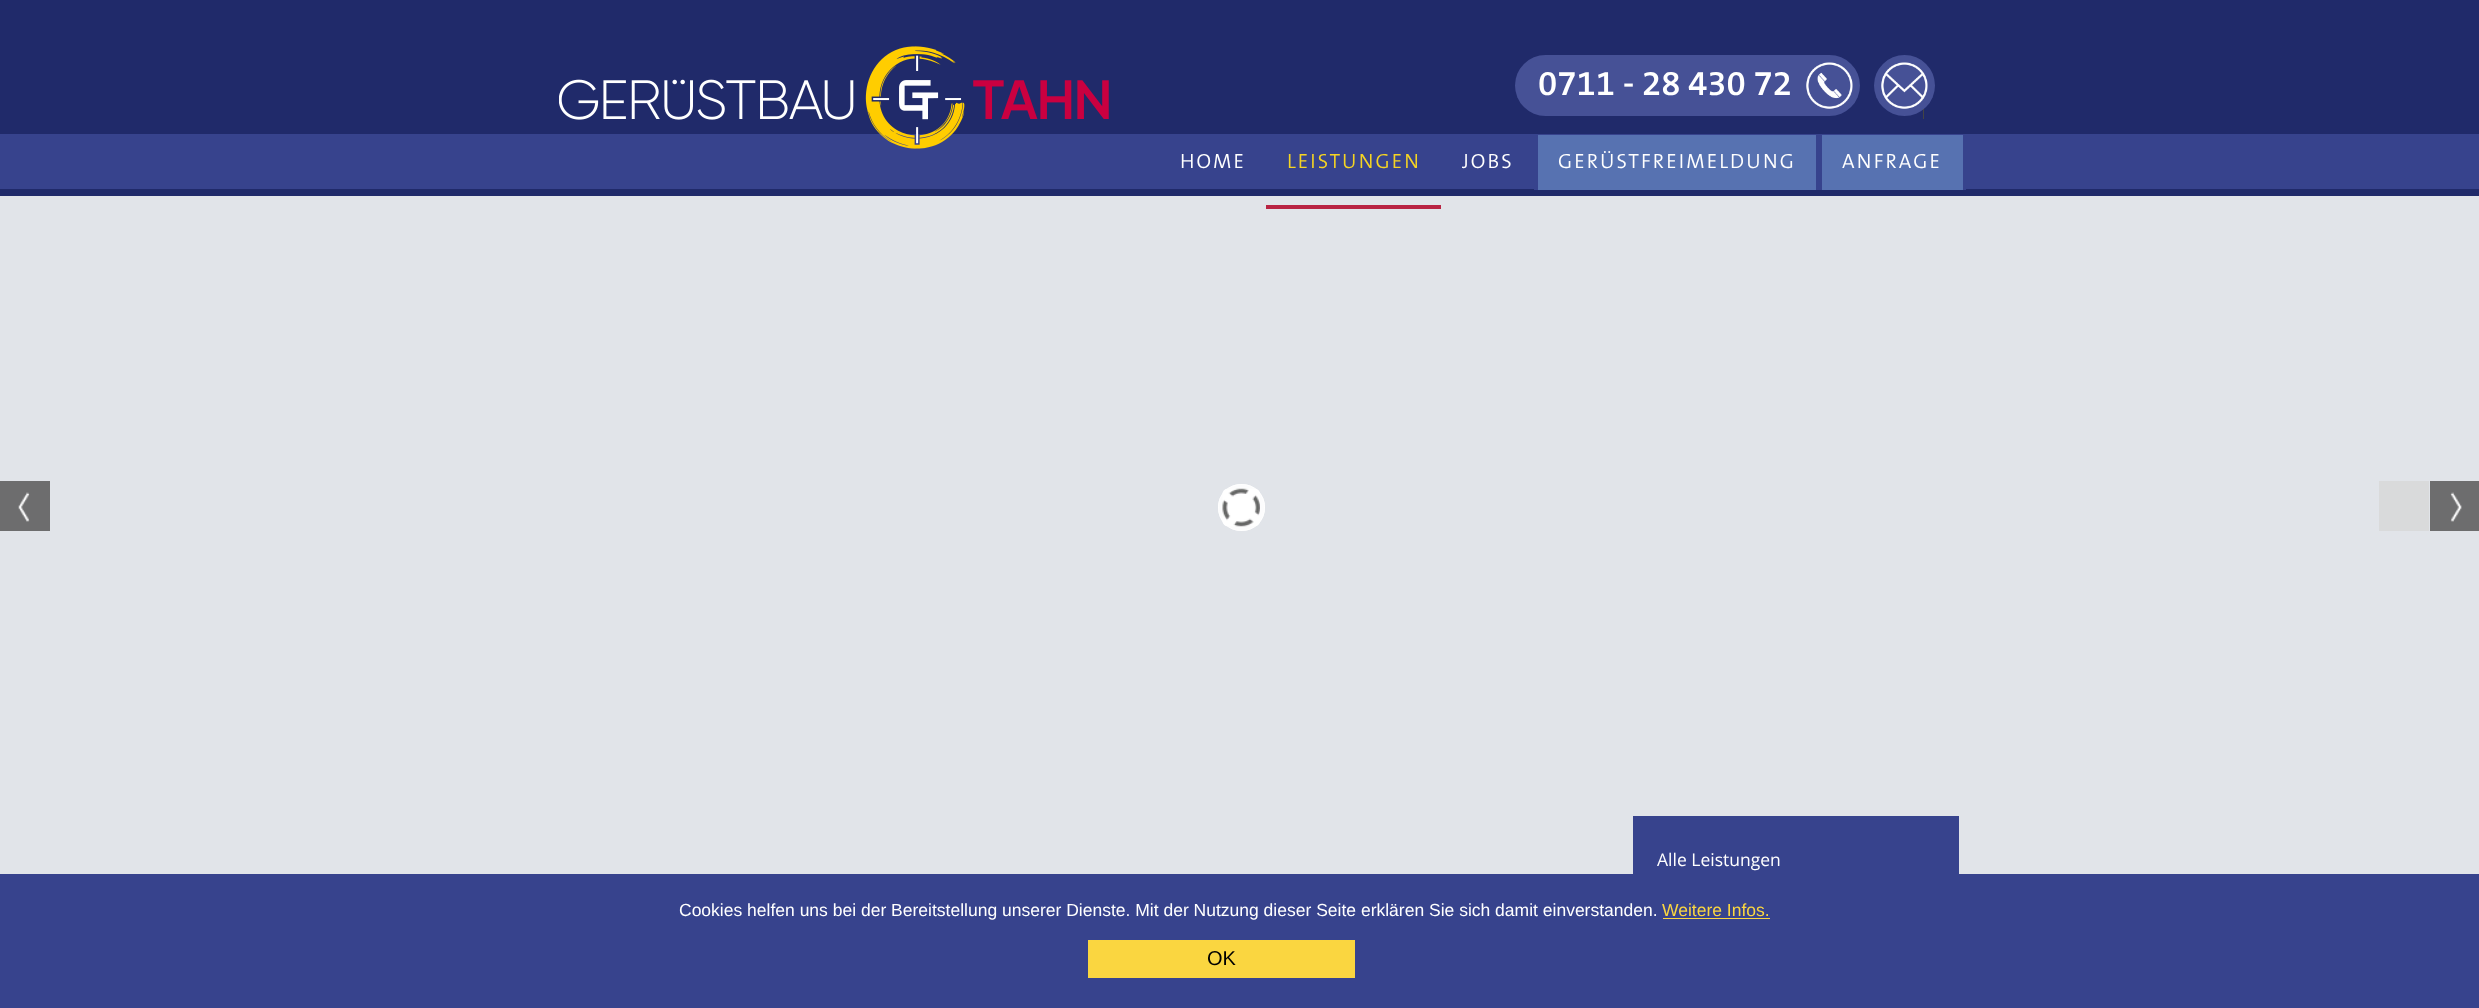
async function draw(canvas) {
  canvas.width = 2479;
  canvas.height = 1008;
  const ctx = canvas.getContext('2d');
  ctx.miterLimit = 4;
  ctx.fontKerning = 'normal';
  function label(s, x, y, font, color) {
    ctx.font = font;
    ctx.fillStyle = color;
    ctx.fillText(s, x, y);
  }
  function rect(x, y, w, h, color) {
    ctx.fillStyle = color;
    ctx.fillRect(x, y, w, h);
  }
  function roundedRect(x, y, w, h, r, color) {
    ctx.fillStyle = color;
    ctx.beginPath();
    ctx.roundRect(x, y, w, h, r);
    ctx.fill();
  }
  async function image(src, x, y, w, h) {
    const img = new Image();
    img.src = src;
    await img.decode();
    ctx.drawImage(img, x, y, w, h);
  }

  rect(0, 0, 2479, 1008, '#e1e4e9');
  rect(0, 0, 2479, 134, '#202a6a');
  roundedRect(1515, 55, 345, 61, 30.5, '#465196');
  label('0711 - 28 430 72', 1538, 95, '600 35px "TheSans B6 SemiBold"', '#fff');
  await image('assets/img1.png', 1806, 62, 47, 47);
  rect(1923, 106, 1, 13, '#444');
  ctx.fillStyle = '#465196';
  ctx.beginPath();
  ctx.arc(1904.5, 85.5, 30.5, 0, 2 * Math.PI);
  ctx.fill();
  await image('assets/img2.png', 1881, 62, 47, 47);
  rect(0, 134, 2479, 55, '#37438d');
  rect(0, 189, 2479, 7, '#202a6a');
  await image('assets/img3.png', 559, 46, 550, 103);
  ctx.letterSpacing = '2.1px';
  label('HOME', 1180, 168, '300 20.6px "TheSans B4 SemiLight"', '#fff');
  label('LEISTUNGEN', 1287, 168, '300 20.6px "TheSans B4 SemiLight"', '#f5d423');
  rect(1266, 205, 175, 4, '#b92443');
  label('JOBS', 1462, 168, '300 20.6px "TheSans B4 SemiLight"', '#fff');
  rect(1538, 135, 278, 55, '#5772b1');
  rect(1816, 189, 6, 1, '#37438d');
  rect(1534, 189, 4, 1, '#37438d');
  label('GERÜSTFREIMELDUNG', 1558, 168, '300 20.6px "TheSans B4 SemiLight"', '#fff');
  rect(1822, 135, 141, 55, '#5772b1');
  rect(1963, 189, 3, 1, '#37438d');
  label('ANFRAGE', 1842, 168, '300 20.6px "TheSans B4 SemiLight"', '#fff');
  rect(0, 481, 50, 50, '#6d6d6e');
  await image('assets/img4.png', 18, 492, 12, 30);
  rect(2379, 481, 50, 50, '#d9dadb');
  rect(2430, 481, 49, 50, '#6d6d6e');
  await image('assets/img5.png', 2450, 492, 12, 30);
  roundedRect(1218, 484, 47, 47, 23, '#fcfcfd');
  await image('assets/img6.png', 1222, 488, 38, 39);
  ctx.beginPath();
  ctx.roundRect(1218.5, 484.5, 46, 46, 22.5);
  ctx.strokeStyle = '#fff';
  ctx.stroke();
  rect(1633, 816, 326, 58, '#37438d');
  ctx.letterSpacing = '0px';
  label('Alle Leistungen', 1657, 866, '17.5px Open Sans', '#fff');
  rect(0, 874, 2479, 134, '#37438d');
  label('Cookies helfen uns bei der Bereitstellung unserer Dienste. Mit der Nutzung dieser Seite erklären Sie sich damit einverstanden.', 679, 916, '17.5px Liberation Sans', '#fff');
  label('Weitere Infos.', 1662, 916, '17.5px Liberation Sans', '#fad640');
  rect(1663, 918, 107, 1, '#fad640');
  rect(1088, 940, 267, 38, '#fad640');
  label('OK', 1207, 965, '20px Liberation Sans', '#000');
}

draw(document.querySelector('canvas'));
